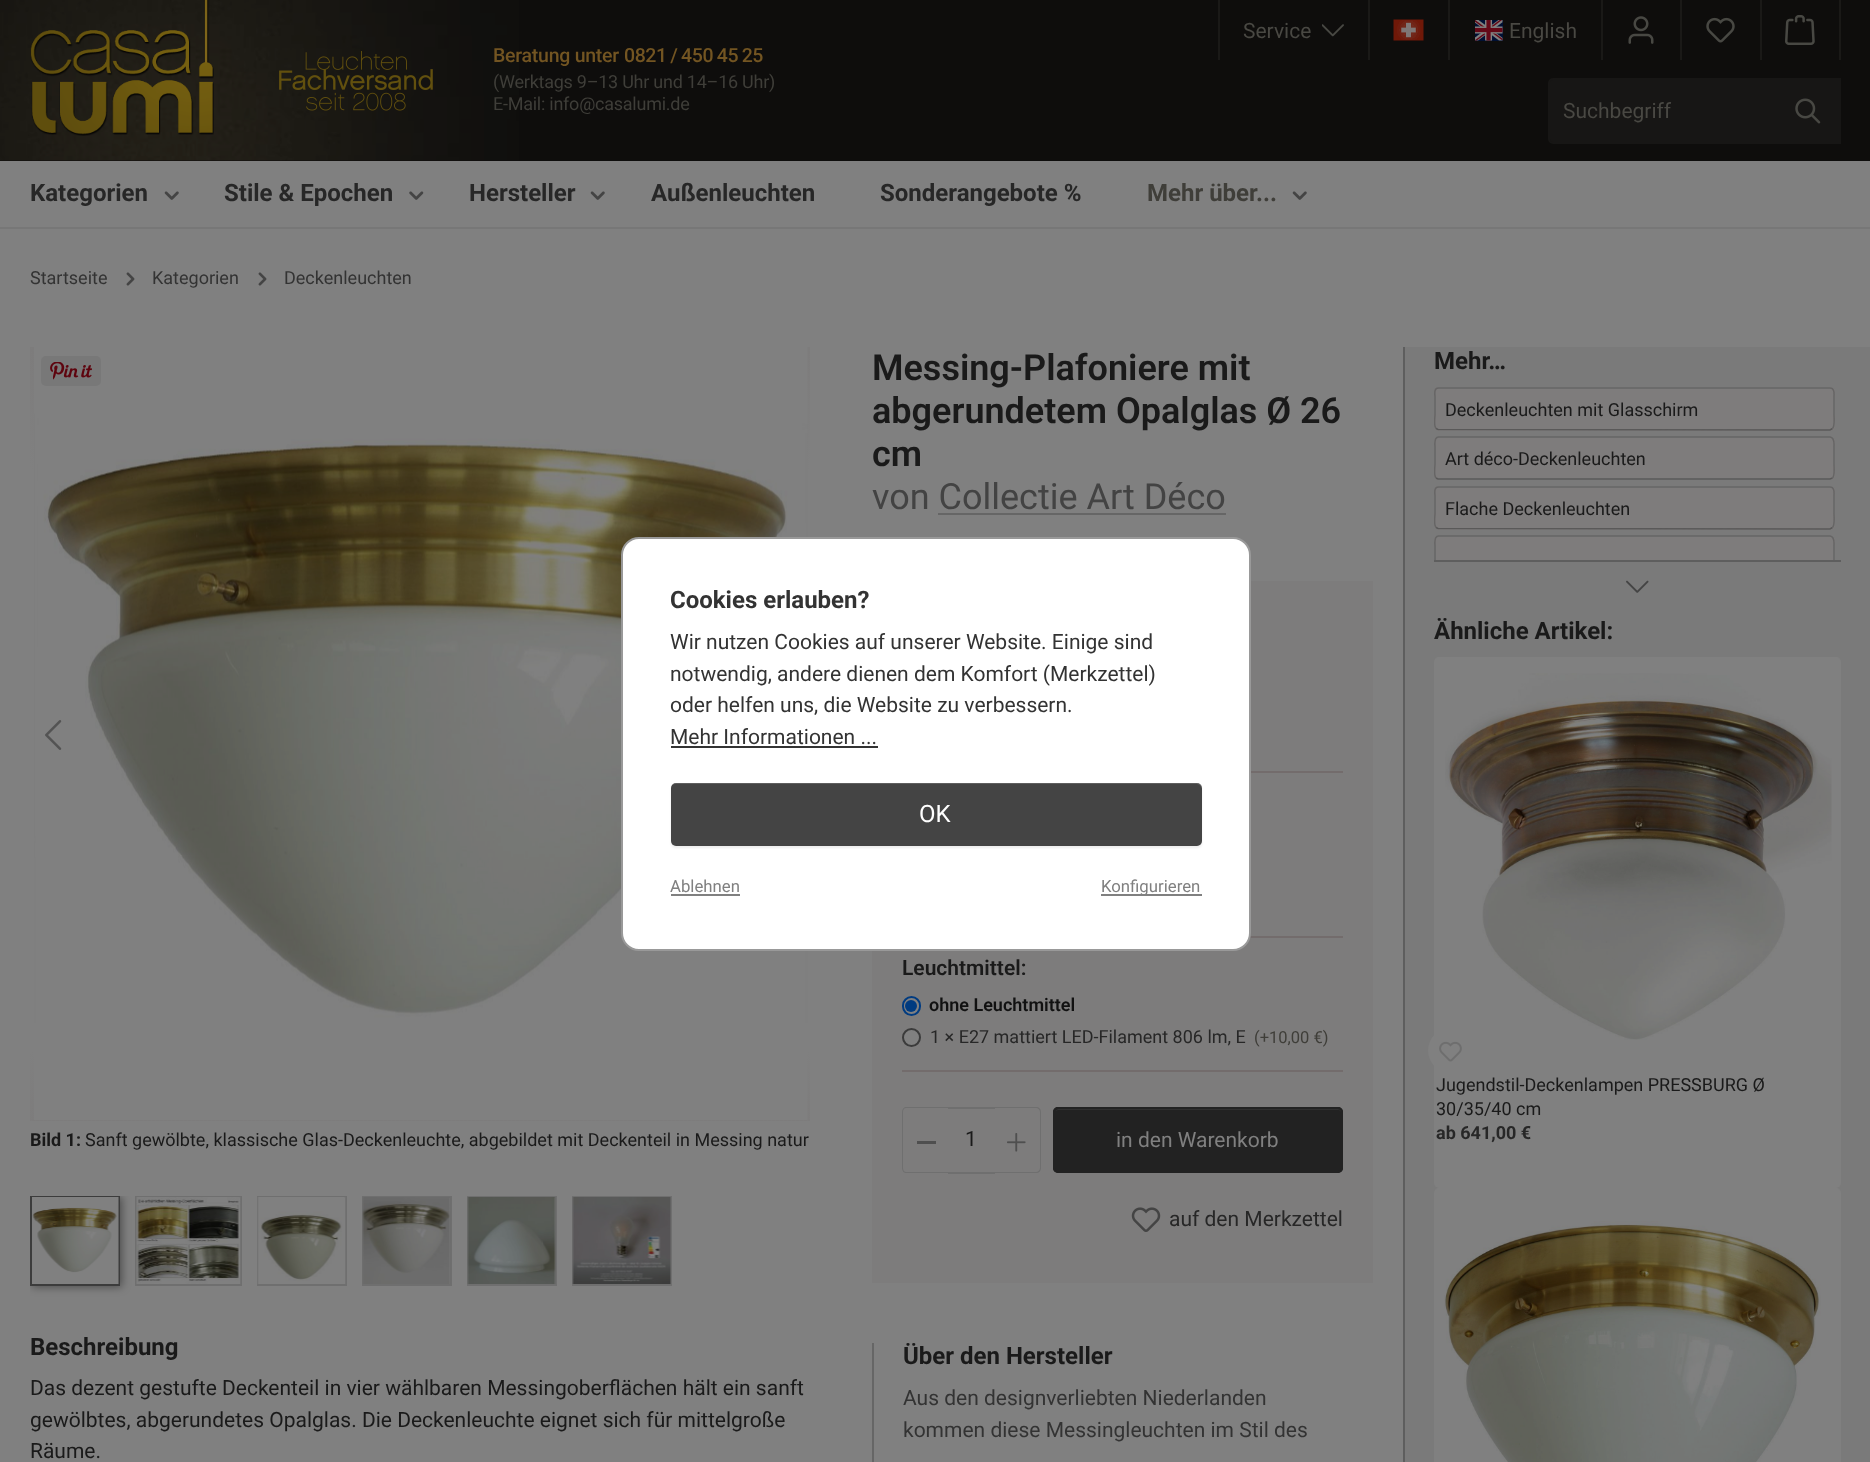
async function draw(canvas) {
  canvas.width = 1870;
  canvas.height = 1462;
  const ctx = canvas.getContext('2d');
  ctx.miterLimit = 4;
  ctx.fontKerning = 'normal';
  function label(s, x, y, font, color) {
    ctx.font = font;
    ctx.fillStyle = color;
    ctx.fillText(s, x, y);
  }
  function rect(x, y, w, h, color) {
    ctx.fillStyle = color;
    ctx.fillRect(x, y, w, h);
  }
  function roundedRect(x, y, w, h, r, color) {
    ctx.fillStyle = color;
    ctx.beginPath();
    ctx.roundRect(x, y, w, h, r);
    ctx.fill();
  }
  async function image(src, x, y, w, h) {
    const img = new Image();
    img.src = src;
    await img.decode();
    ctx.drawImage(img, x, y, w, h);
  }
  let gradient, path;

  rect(0, 0, 1870, 1462, '#808080');
  rect(0, 0, 1870, 161, '#0e0d0c');
  await image('assets/img1.png', 0, 0, 519, 161);
  await image('assets/img2.png', 30, 0, 184, 136);
  await image('assets/img3.png', 279, 51, 154, 60);
  ctx.letterSpacing = '-0.25px';
  label('Beratung unter', 493, 62, '500 19.5px Roboto', '#735522');
  ctx.letterSpacing = '-0.4px';
  label('0821 / 450 45 25', 624, 62, '500 19.5px Roboto', '#735522');
  ctx.letterSpacing = '-0.25px';
  label('(Werktags 9–13 Uhr und 14–16 Uhr)', 493, 88, '18px Roboto', '#3f3e39');
  label('E-Mail: info@casalumi.de', 493, 110, '18px Roboto', '#3f3e39');
  rect(1368, 0, 2, 60, '#1a1917');
  rect(1218, 0, 2, 60, '#1a1917');
  ctx.letterSpacing = '0px';
  label('Service', 1243, 38, '21px Roboto', '#494843');
  await image('assets/img4.png', 1322, 24, 22, 13);
  rect(1448, 0, 2, 60, '#1a1917');
  await image('assets/img5.png', 1393, 19, 31, 22);
  rect(1601, 0, 2, 60, '#1a1917');
  await image('assets/img6.png', 1475, 20, 28, 21);
  label('English', 1509, 38, '21px Roboto', '#494843');
  rect(1680, 0, 2, 60, '#1a1917');
  await image('assets/img7.png', 1628, 16, 26, 28);
  rect(1760, 0, 2, 60, '#1a1917');
  await image('assets/img8.png', 1706, 17, 29, 26);
  rect(1839, 0, 2, 60, '#1a1917');
  await image('assets/img9.png', 1785, 15, 30, 30);
  ctx.fillStyle = '#171615';
  ctx.beginPath();
  ctx.roundRect(1549, 79, 223, 64, [4, 0, 0, 4]);
  ctx.fill();
  ctx.strokeStyle = '#171615';
  ctx.lineWidth = 2;
  ctx.stroke();
  label('Suchbegriff', 1563, 118, '21px Roboto', '#494843');
  rect(1773, 78, 68, 66, '#171615');
  await image('assets/img10.png', 1795, 98, 26, 26);
  rect(0, 227, 1870, 2, '#777');
  label('Kategorien', 30, 201, 'bold 24px Roboto', '#272727');
  await image('assets/img11.png', 164, 191, 15, 9);
  label('Stile & Epochen', 224, 201, 'bold 24px Roboto', '#272727');
  await image('assets/img12.png', 409, 191, 15, 9);
  label('Hersteller', 469, 201, 'bold 24px Roboto', '#272727');
  await image('assets/img11.png', 590, 191, 15, 9);
  label('Außenleuchten', 651, 201, 'bold 24px Roboto', '#272727');
  label('Sonderangebote %', 880, 201, 'bold 24px Roboto', '#272727');
  label('Mehr über...', 1147, 201, 'bold 24px Roboto', '#3f3e39');
  await image('assets/img11.png', 1292, 191, 15, 9);
  label('Startseite', 30, 284, '18px Roboto', '#333');
  await image('assets/img13.png', 126, 272, 9, 14);
  label('Kategorien', 152, 284, '18px Roboto', '#333');
  await image('assets/img13.png', 258, 272, 9, 14);
  label('Deckenleuchten', 284, 284, '18px Roboto', '#333');
  gradient = ctx.createLinearGradient(421, 1173, 421, 347);
  gradient.addColorStop(0, '#808080');
  gradient.addColorStop(0.06, '#808080');
  gradient.addColorStop(0.06, '#7d7c7c');
  gradient.addColorStop(0.15, '#808080');
  gradient.addColorStop(0.85, '#808080');
  gradient.addColorStop(1, '#7d7c7c');
  ctx.fillStyle = gradient;
  ctx.fillRect(30, 347, 780, 774);
  await image('assets/img15.png', 34, 347, 774, 773);
  await image('assets/img14.png', 45, 720, 17, 30);
  roundedRect(41, 356, 60, 30, 5, '#787878');
  await image('assets/img16.png', 50, 362, 42, 18);
  label('Bild 1:', 30, 1146, 'bold 18px Roboto', '#1a1a1a');
  label('Sanft gewölbte, klassische Glas-Deckenleuchte, abgebildet mit Deckenteil in Messing natur', 85, 1146, '18px Roboto', '#1a1a1a');
  ctx.save();
  ctx.beginPath();
  ctx.rect(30, 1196, 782, 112);
  ctx.clip();
  ctx.fillStyle = '#00000066';
  ctx.filter = 'blur(4px)';
  ctx.beginPath();
  ctx.rect(32, 1197, 90, 90);
  ctx.fill();
  ctx.filter = 'none';
  ctx.restore();
  ctx.strokeStyle = '#3c3c3c';
  ctx.strokeRect(31, 1197, 88, 88);
  await image('assets/img17.png', 32, 1197, 87, 87);
  ctx.strokeStyle = '#6f6f6f';
  ctx.strokeRect(136, 1197, 105, 88);
  await image('assets/img18.png', 136, 1197, 105, 87);
  ctx.strokeRect(258, 1197, 88, 88);
  await image('assets/img19.png', 257, 1197, 89, 87);
  ctx.strokeRect(363, 1197, 88, 88);
  await image('assets/img20.png', 362, 1197, 89, 87);
  ctx.strokeRect(468, 1197, 88, 88);
  await image('assets/img21.png', 467, 1197, 89, 87);
  ctx.strokeRect(573, 1197, 98, 88);
  await image('assets/img22.png', 572, 1197, 99, 87);
  label('Beschreibung', 30, 1355, 'bold 24px Roboto', '#1a1a1a');
  label('Das dezent gestufte Deckenteil in vier wählbaren Messingoberflächen hält ein sanft', 30, 1395, '21px Roboto', '#1a1a1a');
  label('gewölbtes, abgerundetes Opalglas. Die Deckenleuchte eignet sich für mittelgroße', 30, 1427, '21px Roboto', '#1a1a1a');
  label('Räume.', 30, 1458, '21px Roboto', '#1a1a1a');
  label('Messing-Plafoniere mit', 872, 380, '600 36px Roboto', '#1a1a1a');
  label('abgerundetem Opalglas Ø 26', 872, 423, '600 36px Roboto', '#1a1a1a');
  label('cm', 872, 466, '600 36px Roboto', '#1a1a1a');
  label('von Collectie Art Déco', 872, 509, '36px Roboto', '#434343');
  rect(938, 513, 288, 2, '#666');
  rect(872, 581, 501, 702, '#7d7c7c');
  rect(1251, 771, 92, 2, '#736c6c');
  rect(1250, 936, 93, 2, '#736c6c');
  rect(902, 1070, 441, 2, '#736c6c');
  label('Leuchtmittel:', 902, 975, '600 21px Roboto', '#1a1a1a');
  ctx.fillStyle = '#808080';
  ctx.beginPath();
  ctx.roundRect(903, 997, 17, 18, 8.5);
  ctx.fill();
  ctx.strokeStyle = '#003b80';
  ctx.stroke();
  ctx.fillStyle = '#003b80';
  ctx.beginPath();
  ctx.arc(911, 1006, 6, 0, 2 * Math.PI);
  ctx.fill();
  label('ohne Leuchtmittel', 929, 1011, '600 18px Roboto', '#111');
  ctx.fillStyle = '#808080';
  ctx.beginPath();
  ctx.arc(911.5, 1037.5, 8.5, 0, 2 * Math.PI);
  ctx.fill();
  ctx.strokeStyle = '#3b3b3b';
  ctx.stroke();
  label('1 × E27 mattiert LED-Filament 806 lm, E', 930, 1043, '18px Roboto', '#272727');
  label('(+10,00 €)', 1254, 1043, '16.5px Roboto', '#3f3e39');
  rect(948, 1107, 47, 2, '#6f6f6f');
  rect(948, 1172, 47, 2, '#6f6f6f');
  path = new Path2D('M906 1107H950V1173H906C904 1173 902 1171 902 1168V1112C902 1109 904 1107 906 1107ZM906 1108H950V1172H906C904 1172 903 1170 903 1168V1112C903 1110 904 1108 906 1108Z');
  ctx.fill(path, 'evenodd');
  rect(917, 1141, 19, 3, '#4f4f4f');
  label('1', 965, 1146, '21px Roboto', '#1a1a1a');
  ctx.fillStyle = '#6f6f6f';
  path = new Path2D('M993 1107H1036C1039 1107 1041 1109 1041 1112V1168C1041 1171 1039 1173 1036 1173H993ZM993 1108H1036C1038 1108 1040 1110 1040 1112V1168C1040 1170 1038 1172 1036 1172H993Z');
  ctx.fill(path, 'evenodd');
  await image('assets/img23.png', 1007, 1133, 19, 19);
  roundedRect(1053, 1107, 290, 66, 5, '#222');
  ctx.fillStyle = '#303030';
  path = new Path2D('M1058 1110H1338C1340 1110 1341 1111 1341 1113V1112C1341 1110 1340 1109 1338 1109H1058C1057 1109 1056 1110 1055 1111Z');
  ctx.fill(path);
  ctx.beginPath();
  ctx.roundRect(1054, 1108, 288, 64, 4);
  ctx.strokeStyle = '#222';
  ctx.stroke();
  label('in den Warenkorb', 1116, 1147, '21px Roboto', '#808080');
  await image('assets/img24.png', 1131, 1207, 30, 25);
  label('auf den Merkzettel', 1169, 1226, '21px Roboto', '#272727');
  rect(872, 1343, 2, 119, '#666');
  label('Über den Hersteller', 903, 1364, 'bold 24px Roboto', '#1a1a1a');
  label('Aus den designverliebten Niederlanden', 903, 1405, '21px Roboto', '#333');
  label('kommen diese Messingleuchten im Stil des', 903, 1437, '21px Roboto', '#333');
  rect(1405, 347, 465, 1115, '#7a7a7a');
  rect(1403, 347, 2, 1115, '#5e5e5e');
  label('Mehr…', 1434, 369, 'bold 24px Roboto', '#1a1a1a');
  roundedRect(1434, 387, 401, 44, 5, '#7e7c7c');
  path = new Path2D('M1832.5 428.5L1830 430L1438 429.5L1436 428.5');
  ctx.strokeStyle = '#5a5959';
  ctx.lineWidth = 1.5;
  ctx.stroke(path);
  ctx.save();
  ctx.beginPath();
  ctx.rect(1434, 387, 407, 173);
  ctx.clip();
  path = new Path2D('M1436 428.5C1433.5 426 1435 417.5 1435 414.5V397C1435 394.5 1433.5 388 1438.5 388H1830C1835 388 1834 394.5 1834 397V414.5C1834 417.5 1835 426 1832.5 428.5');
  ctx.strokeStyle = '#666565';
  ctx.stroke(path);
  ctx.restore();
  label('Deckenleuchten mit Glasschirm', 1445, 416, '18px Roboto', '#1a1a1a');
  roundedRect(1434, 437, 401, 43, 5, '#7e7c7c');
  path = new Path2D('M1832.5 478L1830 479H1438L1436 478');
  ctx.stroke(path);
  ctx.save();
  ctx.beginPath();
  ctx.rect(1434, 387, 407, 173);
  ctx.clip();
  path = new Path2D('M1436 478C1433.5 475.5 1435 467 1435 464V447C1435 444 1433.5 437.5 1438.5 437H1830C1835 437.5 1834 444 1834 447V464C1834 467 1835 475.5 1832.5 478');
  ctx.strokeStyle = '#666565';
  ctx.stroke(path);
  ctx.restore();
  label('Art déco-Deckenleuchten', 1445, 465, '18px Roboto', '#1a1a1a');
  roundedRect(1434, 486, 401, 44, 5, '#7e7c7c');
  path = new Path2D('M1832.5 527.5L1830 529L1438 528.5L1436 527.5');
  ctx.stroke(path);
  ctx.save();
  ctx.beginPath();
  ctx.rect(1434, 387, 407, 173);
  ctx.clip();
  path = new Path2D('M1436 527.5C1433.5 525 1435 516.5 1435 513.5V496C1435 493.5 1433.5 487 1438.5 487H1830C1835 487 1834 493.5 1834 496V513.5C1834 516.5 1835 525 1832.5 527.5');
  ctx.strokeStyle = '#666565';
  ctx.stroke(path);
  ctx.restore();
  label('Flache Deckenleuchten', 1445, 515, '18px Roboto', '#1a1a1a');
  ctx.fillStyle = '#7e7c7c';
  ctx.beginPath();
  ctx.roundRect(1434, 536, 401, 24, [5, 5, 0, 0]);
  ctx.fill();
  ctx.save();
  ctx.beginPath();
  ctx.rect(1434, 387, 407, 173);
  ctx.clip();
  path = new Path2D('M1436 577C1433.5 574.5 1435 566 1435 563V546C1435 543 1433.5 536.5 1438.5 536H1830C1835 536.5 1834 543 1834 546V563C1834 566 1835 574.5 1832.5 577');
  ctx.strokeStyle = '#666565';
  ctx.stroke(path);
  ctx.restore();
  rect(1434, 560, 407, 2, '#5e5e5e');
  await image('assets/img25.png', 1626, 580, 23, 13);
  label('Ähnliche Artikel:', 1434, 639, 'bold 24px Roboto', '#1a1a1a');
  roundedRect(1434, 657, 407, 531, 5, '#808080');
  await image('assets/img26.png', 1445, 673, 387, 367);
  ctx.beginPath();
  ctx.arc(1450.5, 1050.5, 22.5, 0, 2 * Math.PI);
  ctx.fill();
  await image('assets/img27.png', 1439, 1041, 23, 21);
  label('Jugendstil-Deckenlampen PRESSBURG Ø', 1436, 1091, '18px Roboto', '#1a1a1a');
  label('30/35/40 cm', 1436, 1115, '18px Roboto', '#1a1a1a');
  label('ab 641,00 €', 1436, 1139, 'bold 18px Roboto', '#272727');
  roundedRect(1434, 1188, 407, 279, 5, '#808080');
  await image('assets/img28.png', 1444, 1221, 377, 241);
  ctx.fillStyle = '#fff';
  ctx.beginPath();
  ctx.roundRect(622, 538, 628, 412, 17);
  ctx.fill();
  ctx.strokeStyle = '#999';
  ctx.lineWidth = 2;
  ctx.stroke();
  label('Cookies erlauben?', 670, 608, 'bold 24px Roboto', '#333');
  label('Wir nutzen Cookies auf unserer Website. Einige sind', 670, 649, '21px Roboto', '#333');
  label('notwendig, andere dienen dem Komfort (Merkzettel)', 670, 681, '21px Roboto', '#333');
  label('oder helfen uns, die Website zu verbessern.', 670, 712, '21px Roboto', '#333');
  label('Mehr Informationen ...', 670, 744, '21px Roboto', '#333');
  rect(671, 746, 207, 2, '#333');
  ctx.fillStyle = '#00000012';
  ctx.filter = 'blur(1px)';
  ctx.beginPath();
  ctx.roundRect(671, 785, 531, 63, 5);
  ctx.fill();
  ctx.filter = 'none';
  roundedRect(671, 783, 531, 63, 5, '#444');
  ctx.fillStyle = '#ffffff26';
  path = new Path2D('M675 784H1197C1199 784 1202 787 1202 789V788C1202 785 1200 783 1197 783H676C674 783 672 784 671 786C672 785 674 784 675 784Z');
  ctx.fill(path);
  label('OK', 919, 822, '24px Roboto', '#fff');
  label('Ablehnen', 670, 892, '16.75px Roboto', '#808080');
  rect(671, 894, 69, 2, '#808080');
  rect(1101, 894, 101, 2, '#808080');
  label('Konfigurieren', 1101, 892, '16.75px Roboto', '#808080');
}

draw(document.querySelector('canvas'));
